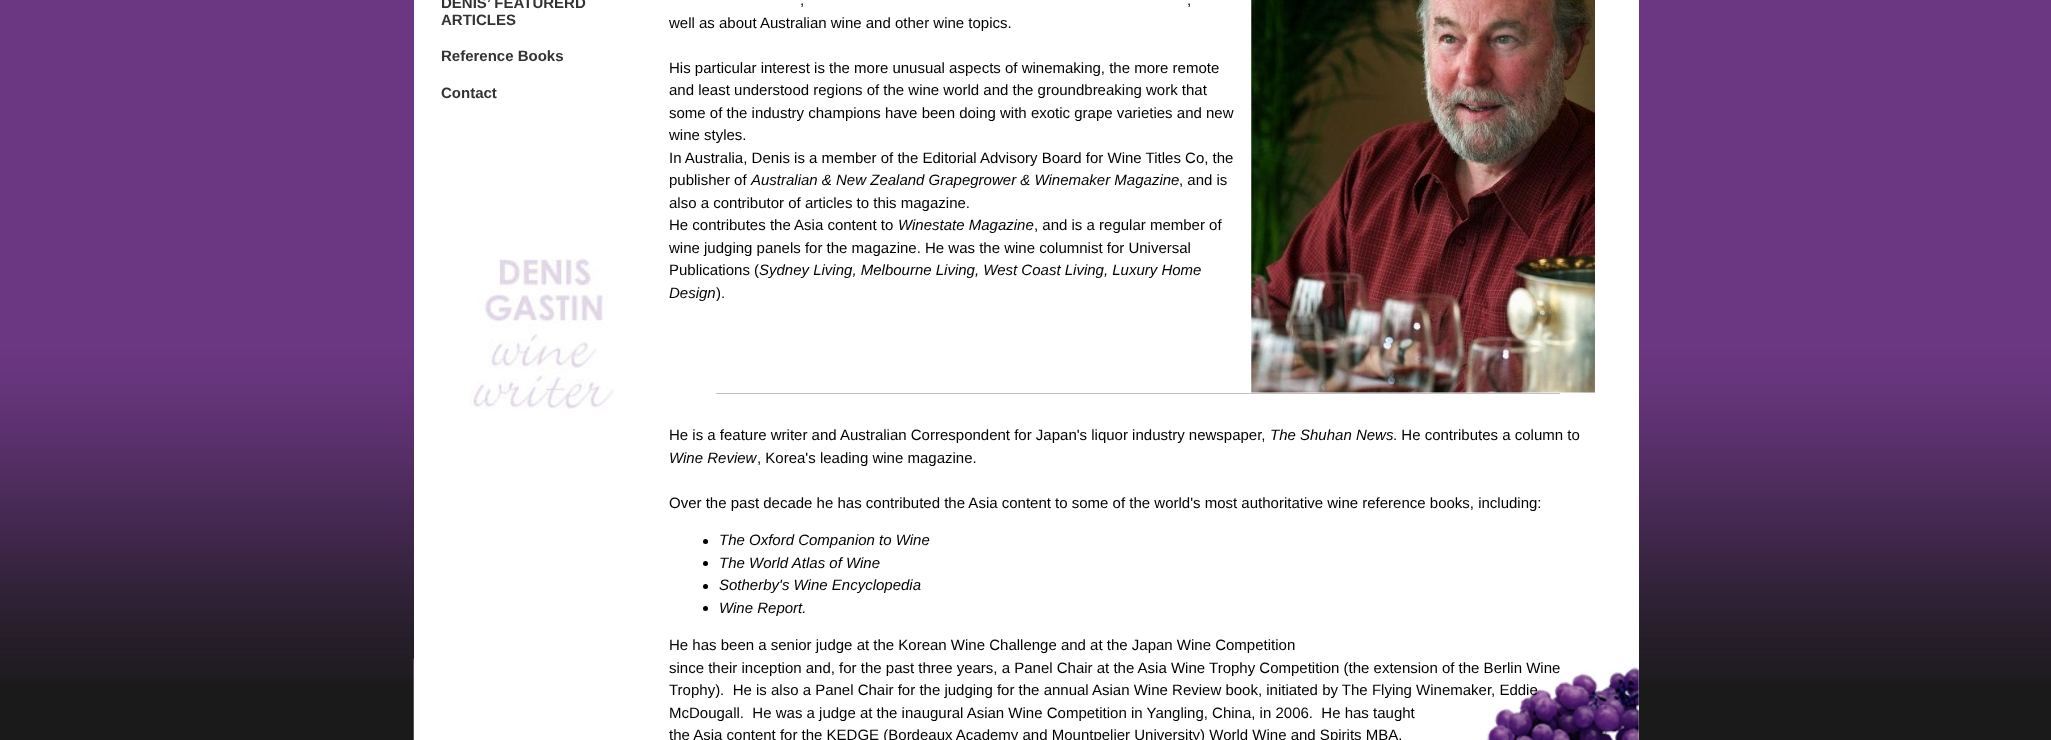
async function draw(canvas) {
  canvas.width = 2051;
  canvas.height = 740;
  const ctx = canvas.getContext('2d');
  ctx.miterLimit = 4;
  ctx.fontKerning = 'normal';
  function label(s, x, y, font, color) {
    ctx.font = font;
    ctx.fillStyle = color;
    ctx.fillText(s, x, y);
  }
  function rect(x, y, w, h, color) {
    ctx.fillStyle = color;
    ctx.fillRect(x, y, w, h);
  }
  async function image(src, x, y, w, h) {
    const img = new Image();
    img.src = src;
    await img.decode();
    ctx.drawImage(img, x, y, w, h);
  }

  rect(0, 0, 2051, 740, '#1a1a1a');
  await image('assets/img1.png', 0, 0, 2051, 681);
  rect(414, 0, 1225, 740, '#fff');
  await image('assets/img2.png', 413, 658, 1226, 82);
  label('DENIS’ FEATURERD', 441, 8, 'bold 15px Liberation Sans', '#333');
  label('ARTICLES', 441, 25, 'bold 15px Liberation Sans', '#333');
  label('Reference Books', 441, 61, 'bold 15px Liberation Sans', '#333');
  label('Contact', 441, 98, 'bold 15px Liberation Sans', '#333');
  await image('assets/img3.png', 469, 258, 146, 151);
  label(',', 800, 5, '15px Liberation Sans', '#000');
  label(',', 1187, 5, '15px Liberation Sans', '#000');
  label('well as about Australian wine and other wine topics.', 669, 28, '15px Liberation Sans', '#000');
  await image('assets/img4.png', 1251, 0, 344, 393);
  label('His particular interest is the more unusual aspects of winemaking, the more remote', 669, 73, '15px Liberation Sans', '#000');
  label('and least understood regions of the wine world and the groundbreaking work that', 669, 95, '15px Liberation Sans', '#000');
  label('some of the industry champions have been doing with exotic grape varieties and new', 669, 118, '15px Liberation Sans', '#000');
  label('wine styles.', 669, 140, '15px Liberation Sans', '#000');
  label('In Australia, Denis is a member of the Editorial Advisory Board for Wine Titles Co, the', 669, 163, '15px Liberation Sans', '#000');
  label('publisher of', 669, 185, '15px Liberation Sans', '#000');
  label('Australian & New Zealand Grapegrower & Winemaker Magazine', 751, 185, 'italic 15px Liberation Sans', '#000');
  label(', and is', 1179, 185, '15px Liberation Sans', '#000');
  label('also a contributor of articles to this magazine.', 669, 208, '15px Liberation Sans', '#000');
  label('He contributes the Asia content to', 669, 230, '15px Liberation Sans', '#000');
  label('Winestate Magazine', 898, 230, 'italic 15px Liberation Sans', '#000');
  label(', and is a regular member of', 1034, 230, '15px Liberation Sans', '#000');
  label('wine judging panels for the magazine. He was the wine columnist for Universal', 669, 253, '15px Liberation Sans', '#000');
  label('Publications (', 669, 275, '15px Liberation Sans', '#000');
  label('Sydney Living, Melbourne Living, West Coast Living, Luxury Home', 759, 275, 'italic 15px Liberation Sans', '#000');
  label('Design', 669, 298, 'italic 15px Liberation Sans', '#000');
  label(').', 716, 298, '15px Liberation Sans', '#000');
  rect(716, 393, 844, 1, '#c1c1c1');
  label('He is a feature writer and Australian Correspondent for Japan\'s liquor industry newspaper,', 669, 440, '15px Liberation Sans', '#000');
  label('The Shuhan News', 1270, 440, 'italic 15px Liberation Sans', '#000');
  label('. He contributes a column to', 1393, 440, '15px Liberation Sans', '#000');
  label('Wine Review', 669, 463, 'italic 15px Liberation Sans', '#000');
  label(', Korea\'s leading wine magazine.', 757, 463, '15px Liberation Sans', '#000');
  label('Over the past decade he has contributed the Asia content to some of the world\'s most authoritative wine reference books, including:', 669, 508, '15px Liberation Sans', '#000');
  ctx.beginPath();
  ctx.arc(705.5, 541.5, 2.5, 0, 2 * Math.PI);
  ctx.fill();
  label('The Oxford Companion to Wine', 719, 545, 'italic 15px Liberation Sans', '#000');
  ctx.beginPath();
  ctx.arc(705.5, 563.5, 2.5, 0, 2 * Math.PI);
  ctx.fill();
  label('The World Atlas of Wine', 719, 568, 'italic 15px Liberation Sans', '#000');
  ctx.beginPath();
  ctx.arc(705.5, 586.5, 2.5, 0, 2 * Math.PI);
  ctx.fill();
  label('Sotherby\'s Wine Encyclopedia', 719, 590, 'italic 15px Liberation Sans', '#000');
  ctx.beginPath();
  ctx.arc(705.5, 608.5, 2.5, 0, 2 * Math.PI);
  ctx.fill();
  label('Wine Report.', 719, 613, 'italic 15px Liberation Sans', '#000');
  label('He has been a senior judge at the Korean Wine Challenge and at the Japan Wine Competition', 669, 650, '15px Liberation Sans', '#000');
  label('since their inception and, for the past three years, a Panel Chair at the Asia Wine Trophy Competition (the extension of the Berlin Wine', 669, 673, '15px Liberation Sans', '#000');
  label('Trophy).  He is also a Panel Chair for the judging for the annual Asian Wine Review book, initiated by The Flying Winemaker, Eddie', 669, 695, '15px Liberation Sans', '#000');
  label('McDougall.  He was a judge at the inaugural Asian Wine Competition in Yangling, China, in 2006.  He has taught', 669, 718, '15px Liberation Sans', '#000');
  label('the Asia content for the KEDGE (Bordeaux Academy and Mountpelier University) World Wine and Spirits MBA.', 669, 740, '15px Liberation Sans', '#000');
}

draw(document.querySelector('canvas'));
